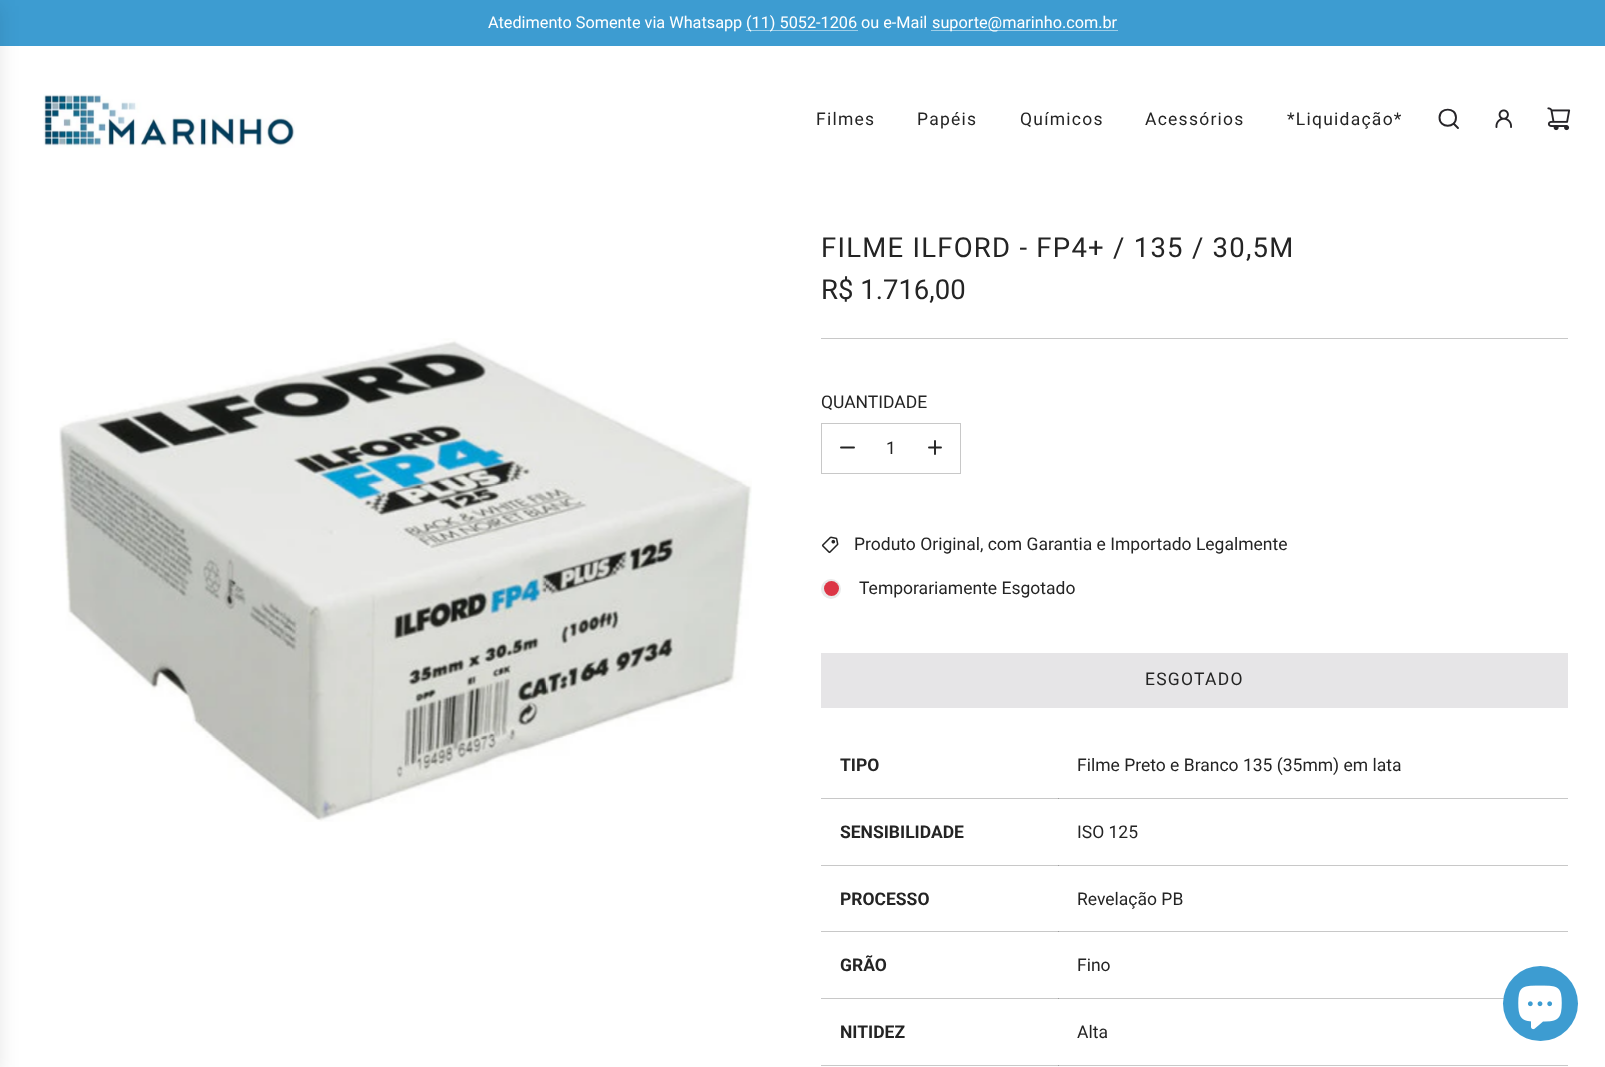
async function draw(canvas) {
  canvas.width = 1605;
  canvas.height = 1067;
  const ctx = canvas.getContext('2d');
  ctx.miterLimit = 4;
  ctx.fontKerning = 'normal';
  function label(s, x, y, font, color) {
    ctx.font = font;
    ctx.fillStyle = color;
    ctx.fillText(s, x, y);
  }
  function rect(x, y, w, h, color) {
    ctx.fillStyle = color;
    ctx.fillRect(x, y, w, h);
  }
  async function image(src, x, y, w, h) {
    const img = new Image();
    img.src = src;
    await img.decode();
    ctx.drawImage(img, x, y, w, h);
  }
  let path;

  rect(0, 0, 1605, 1067, '#fff');
  rect(821, 798, 747, 1, '#c8c8c8');
  rect(821, 865, 747, 1, '#c8c8c8');
  rect(821, 931, 747, 1, '#c8c8c8');
  rect(821, 998, 683, 1, '#c8c8c8');
  rect(821, 1065, 747, 1, '#c8c8c8');
  rect(0, 0, 1605, 46, '#3d9cd1');
  label('Atedimento Somente via Whatsapp', 488, 28, '16.25px Roboto', '#fff');
  rect(746, 30, 112, 1, '#9ecee8');
  label('(11) 5052-1206', 746, 28, '16.25px Roboto', '#fff');
  label('ou e-Mail', 861, 28, '16.25px Roboto', '#fff');
  rect(931, 30, 187, 1, '#9ecee8');
  label('suporte@marinho.com.br', 932, 28, '16.25px Roboto', '#fff');
  ctx.fillStyle = '#0000001a';
  ctx.filter = 'blur(9.5px)';
  ctx.beginPath();
  ctx.rect(-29, 6, 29, 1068);
  ctx.fill();
  ctx.filter = 'none';
  await image('assets/img1.png', 43, 94, 252, 54);
  ctx.letterSpacing = '1.25px';
  label('Filmes', 816, 125, '17.5px Roboto', '#242424');
  label('Papéis', 917, 125, '17.5px Roboto', '#242424');
  label('Químicos', 1020, 125, '17.5px Roboto', '#242424');
  label('Acessórios', 1145, 125, '17.5px Roboto', '#242424');
  label('*Liquidação*', 1287, 125, '17.5px Roboto', '#242424');
  path = new Path2D('M1454 124L1458 128M1439.5 117.5C1439.5 128.5 1456 128.5 1456 117.5C1456 107 1439.5 107 1439.5 117.5Z');
  ctx.strokeStyle = '#262428';
  ctx.lineWidth = 1.9;
  ctx.lineCap = 'round';
  ctx.lineJoin = 'round';
  ctx.stroke(path);
  await image('assets/img2.png', 1495, 109, 17, 19);
  await image('assets/img3.png', 1547, 107, 24, 24);
  await image('assets/img4.png', 59, 338, 693, 484);
  label('FILME ILFORD - FP4+ / 135 / 30,5M', 821, 257, '27.5px Roboto', '#242424');
  ctx.letterSpacing = '0px';
  label('R$ 1.716,00', 821, 299, '27.5px Roboto', '#242424');
  rect(821, 338, 747, 1, '#c8c8c8');
  label('QUANTIDADE', 821, 408, '17.5px Roboto', '#242424');
  ctx.strokeStyle = '#c8c8c8';
  ctx.lineWidth = 1;
  ctx.lineJoin = 'miter';
  ctx.strokeRect(821.5, 423.5, 139, 50);
  path = new Path2D('M841 447.5H854');
  ctx.strokeStyle = '#242424';
  ctx.lineWidth = 1.9;
  ctx.lineJoin = 'round';
  ctx.stroke(path);
  label('1', 886, 454, '17.5px Roboto', '#242424');
  path = new Path2D('M929 447.5H935M935 447.5H941M935 447.5V441M935 447.5V454');
  ctx.stroke(path);
  await image('assets/img5.png', 821, 536, 18, 18);
  label('Produto Original, com Garantia e Importado Legalmente', 854, 550, '17.5px Roboto', '#242424');
  ctx.fillStyle = '#e9e9e9';
  ctx.beginPath();
  ctx.arc(831, 589, 10, 0, 2 * Math.PI);
  ctx.fill();
  ctx.fillStyle = '#dc3545';
  ctx.beginPath();
  ctx.arc(831.5, 588.5, 7.5, 0, 2 * Math.PI);
  ctx.fill();
  label('Temporariamente Esgotado', 859, 594, '17.5px Roboto', '#242424');
  rect(821, 653, 747, 55, '#e6e5e7');
  ctx.letterSpacing = '1.25px';
  label('ESGOTADO', 1145, 685, '17.5px Roboto', '#242424');
  ctx.letterSpacing = '0px';
  label('TIPO', 840, 771, 'bold 17.5px Roboto', '#242424');
  rect(1058, 798, 1, 1, '#9f9f9f');
  label('Filme Preto e Branco 135 (35mm) em lata', 1077, 771, '17.5px Roboto', '#242424');
  label('SENSIBILIDADE', 840, 838, 'bold 17.5px Roboto', '#242424');
  rect(1058, 865, 1, 1, '#9f9f9f');
  label('ISO 125', 1077, 838, '17.5px Roboto', '#242424');
  label('PROCESSO', 840, 905, 'bold 17.5px Roboto', '#242424');
  rect(1058, 931, 1, 1, '#9f9f9f');
  label('Revelação PB', 1077, 905, '17.5px Roboto', '#242424');
  label('GRÃO', 840, 971, 'bold 17.5px Roboto', '#242424');
  rect(1058, 998, 1, 1, '#9f9f9f');
  label('Fino', 1077, 971, '17.5px Roboto', '#242424');
  label('NITIDEZ', 840, 1038, 'bold 17.5px Roboto', '#242424');
  rect(1058, 1065, 1, 1, '#9f9f9f');
  label('Alta', 1077, 1038, '17.5px Roboto', '#242424');
  ctx.fillStyle = '#3d9cd1';
  ctx.beginPath();
  ctx.arc(1540.5, 1003.5, 37.5, 0, 2 * Math.PI);
  ctx.fill();
  await image('assets/img6.png', 1518, 985, 44, 45);
}

draw(document.querySelector('canvas'));
